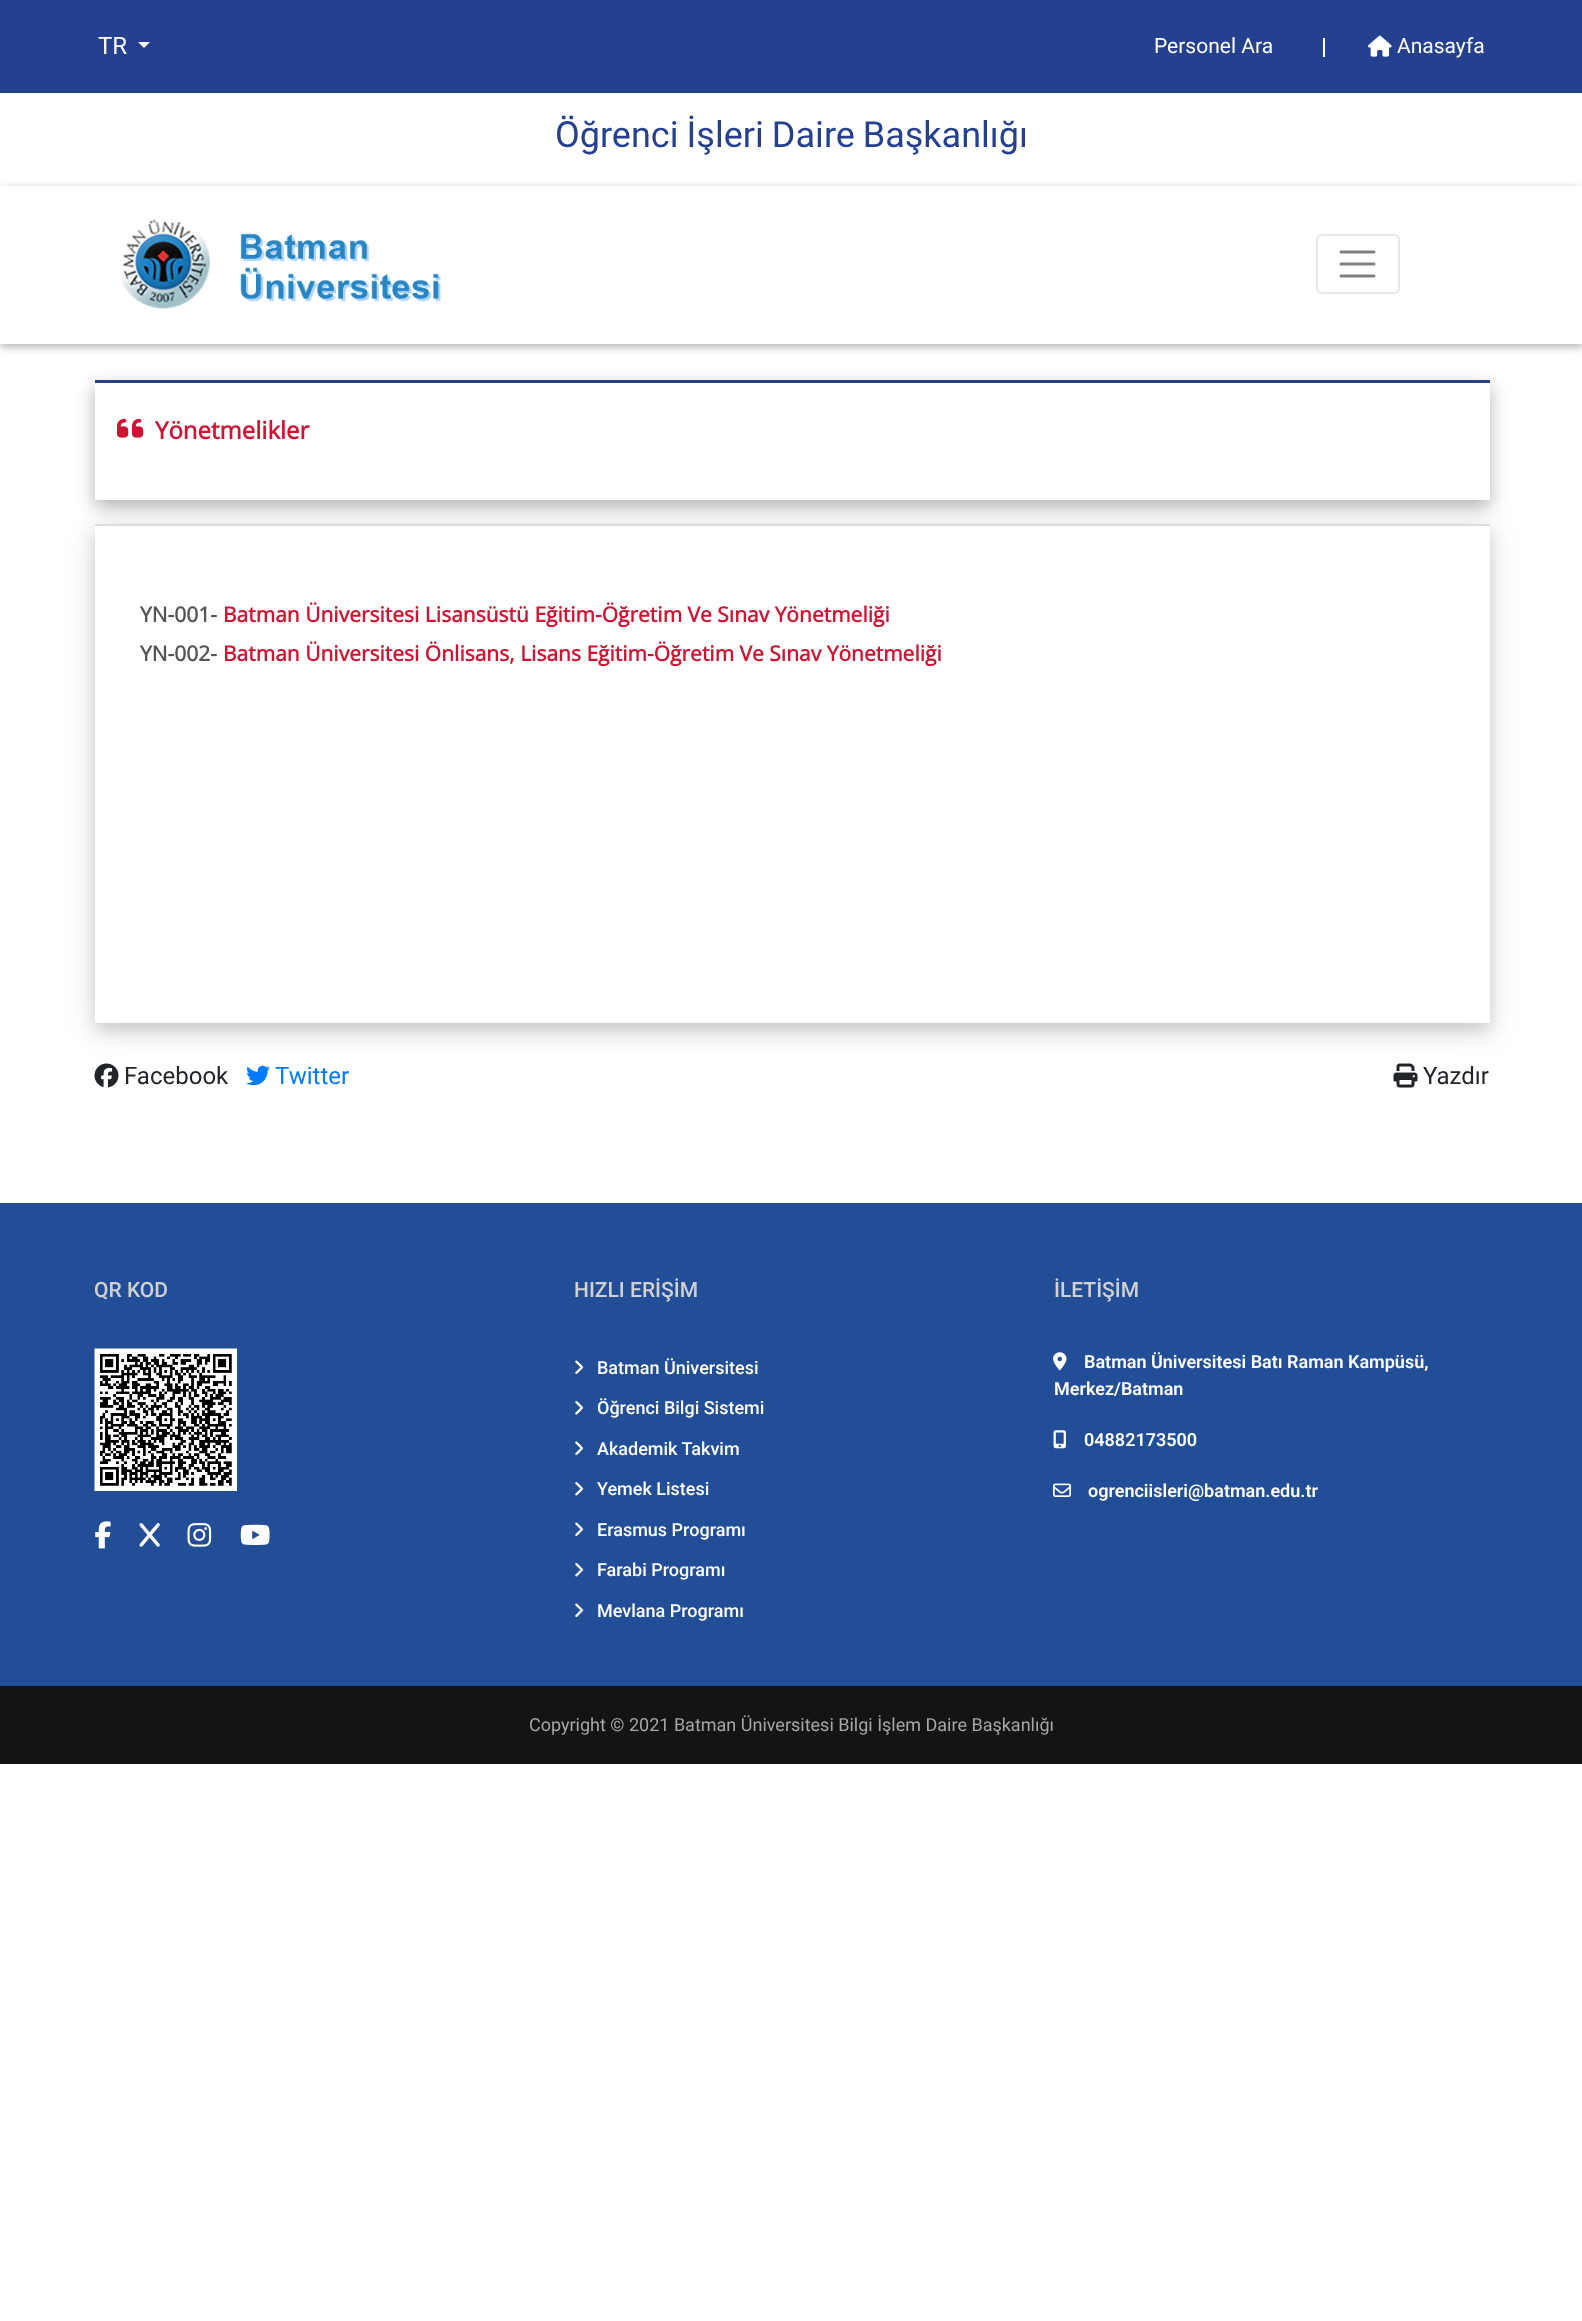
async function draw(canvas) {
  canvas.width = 1582;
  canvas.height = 2321;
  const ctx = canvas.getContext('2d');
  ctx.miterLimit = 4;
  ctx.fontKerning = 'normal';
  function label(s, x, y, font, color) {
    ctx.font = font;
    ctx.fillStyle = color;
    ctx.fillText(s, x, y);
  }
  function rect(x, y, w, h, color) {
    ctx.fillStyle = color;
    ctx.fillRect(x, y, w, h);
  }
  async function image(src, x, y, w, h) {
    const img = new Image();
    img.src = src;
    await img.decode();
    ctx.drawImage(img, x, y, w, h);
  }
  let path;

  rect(0, 0, 1582, 2321, '#fff');
  rect(0, 0, 1582, 93, '#25408f');
  label('TR', 98, 54, '24px Roboto', '#fff');
  path = new Path2D('M138 42H150L144 48Z');
  ctx.fill(path);
  label('Personel Ara', 1154, 53, '21px Roboto', '#fff');
  rect(1323, 38, 2, 19, '#fff');
  await image('assets/img1.png', 1368, 35, 24, 22);
  label('Anasayfa', 1397, 53, '21px Roboto', '#fff');
  ctx.wordSpacing = '-1px';
  label('Öğrenci̇ İşleri̇ Dai̇re Başkanlığı', 555, 147, '36px "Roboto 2"', '#25408f');
  ctx.fillStyle = '#0000004d';
  ctx.filter = 'blur(4.5px)';
  ctx.beginPath();
  ctx.rect(0, 189, 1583, 158);
  ctx.fill();
  ctx.filter = 'none';
  rect(0, 186, 1582, 158, '#fff');
  await image('assets/img2.png', 120, 219, 321, 90);
  ctx.beginPath();
  ctx.roundRect(1317, 235, 82, 58, 5);
  ctx.strokeStyle = '#e6e6e6';
  ctx.lineWidth = 2;
  ctx.stroke();
  path = new Path2D('M1341 252H1374M1341 264H1374M1341 276H1374');
  ctx.strokeStyle = '#808080';
  ctx.lineWidth = 3;
  ctx.lineCap = 'round';
  ctx.stroke(path);
  ctx.save();
  path = new Path2D('M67 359H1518V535H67ZM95 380H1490V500H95Z');
  ctx.clip(path, 'evenodd');
  ctx.fillStyle = '#0000004d';
  ctx.filter = 'blur(9px)';
  ctx.beginPath();
  ctx.rect(95, 387, 1395, 120);
  ctx.fill();
  ctx.filter = 'none';
  ctx.restore();
  rect(95, 380, 1395, 3, '#25408f');
  await image('assets/img3.png', 117, 418, 27, 20);
  ctx.wordSpacing = '0px';
  label('Yönetmelikler', 155, 439, 'bold 24px Open Sans', '#ce1432');
  ctx.save();
  path = new Path2D('M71 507H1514V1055H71ZM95 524H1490V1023H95Z');
  ctx.clip(path, 'evenodd');
  ctx.fillStyle = '#0000001f';
  ctx.filter = 'blur(7.5px)';
  ctx.beginPath();
  ctx.rect(95, 531, 1395, 500);
  ctx.fill();
  ctx.filter = 'none';
  ctx.restore();
  ctx.save();
  path = new Path2D('M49 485H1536V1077H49ZM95 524H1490V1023H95Z');
  ctx.clip(path, 'evenodd');
  ctx.fillStyle = '#0000001f';
  ctx.filter = 'blur(15px)';
  ctx.beginPath();
  ctx.rect(95, 531, 1395, 500);
  ctx.fill();
  ctx.filter = 'none';
  ctx.restore();
  rect(1489, 526, 1, 497, '#fffffff5');
  rect(95, 524, 1395, 2, '#ddd');
  label('YN-001-', 140, 622, 'bold 21px Open Sans', '#555');
  label('Batman Üniversitesi Lisansüstü Eğitim-Öğretim Ve Sınav Yönetmeliği', 223, 622, 'bold 21px Open Sans', '#ce1432');
  label('YN-002-', 140, 661, 'bold 21px Open Sans', '#555');
  label('Batman Üniversitesi Önlisans, Lisans Eğitim-Öğretim Ve Sınav Yönetmeliği', 223, 661, 'bold 21px Open Sans', '#ce1432');
  await image('assets/img4.png', 94, 1063, 25, 25);
  label('Facebook', 124, 1084, '24px Roboto', '#212529');
  await image('assets/img5.png', 246, 1065, 24, 21);
  label('Twitter', 275, 1084, '24px Roboto', '#007bff');
  await image('assets/img6.png', 1393, 1063, 25, 25);
  label('Yazdır', 1423, 1084, '24px Roboto', '#212529');
  rect(0, 1203, 1582, 483, '#214e97');
  label('QR KOD', 94, 1297, '500 21px Roboto', '#d1d1d1');
  await image('assets/img7.png', 94, 1348, 143, 143);
  await image('assets/img8.png', 95, 1521, 16, 28);
  await image('assets/img9.png', 139, 1523, 21, 24);
  await image('assets/img10.png', 187, 1523, 25, 24);
  await image('assets/img11.png', 240, 1524, 30, 21);
  label('HIZLI ERİŞİM', 574, 1297, '500 21px Roboto', '#d1d1d1');
  await image('assets/img12.png', 575, 1360, 9, 14);
  label('Batman Üniversitesi', 597, 1374, '500 18px Roboto', '#fff');
  await image('assets/img13.png', 575, 1401, 9, 14);
  label('Öğrenci Bilgi Sistemi', 597, 1414, '500 18px Roboto', '#fff');
  await image('assets/img12.png', 575, 1441, 9, 14);
  label('Akademik Takvim', 597, 1455, '500 18px Roboto', '#fff');
  await image('assets/img13.png', 575, 1482, 9, 14);
  label('Yemek Listesi', 597, 1495, '500 18px Roboto', '#fff');
  await image('assets/img12.png', 575, 1522, 9, 14);
  label('Erasmus Programı', 597, 1536, '500 18px Roboto', '#fff');
  await image('assets/img13.png', 575, 1563, 9, 14);
  label('Farabi Programı', 597, 1576, '500 18px Roboto', '#fff');
  await image('assets/img12.png', 575, 1603, 9, 14);
  label('Mevlana Programı', 597, 1617, '500 18px Roboto', '#fff');
  label('İLETİŞİM', 1054, 1297, '500 21px Roboto', '#d1d1d1');
  await image('assets/img14.png', 1053, 1352, 14, 19);
  label('Batman Üniversitesi Batı Raman Kampüsü,', 1084, 1368, '600 18px Roboto', '#fff');
  label('Merkez/Batman', 1054, 1395, '600 18px Roboto', '#fff');
  await image('assets/img15.png', 1053, 1430, 13, 19);
  label('04882173500', 1084, 1446, '600 18px Roboto', '#fff');
  await image('assets/img16.png', 1053, 1483, 18, 14);
  label('ogrenciisleri@batman.edu.tr', 1088, 1497, '600 18px Roboto', '#fff');
  rect(0, 1686, 1582, 78, '#141414');
  label('Copyright © 2021 Batman Üniversitesi Bilgi İşlem Daire Başkanlığı', 529, 1731, '18px Roboto', '#a7a7a7');
}

draw(document.querySelector('canvas'));
